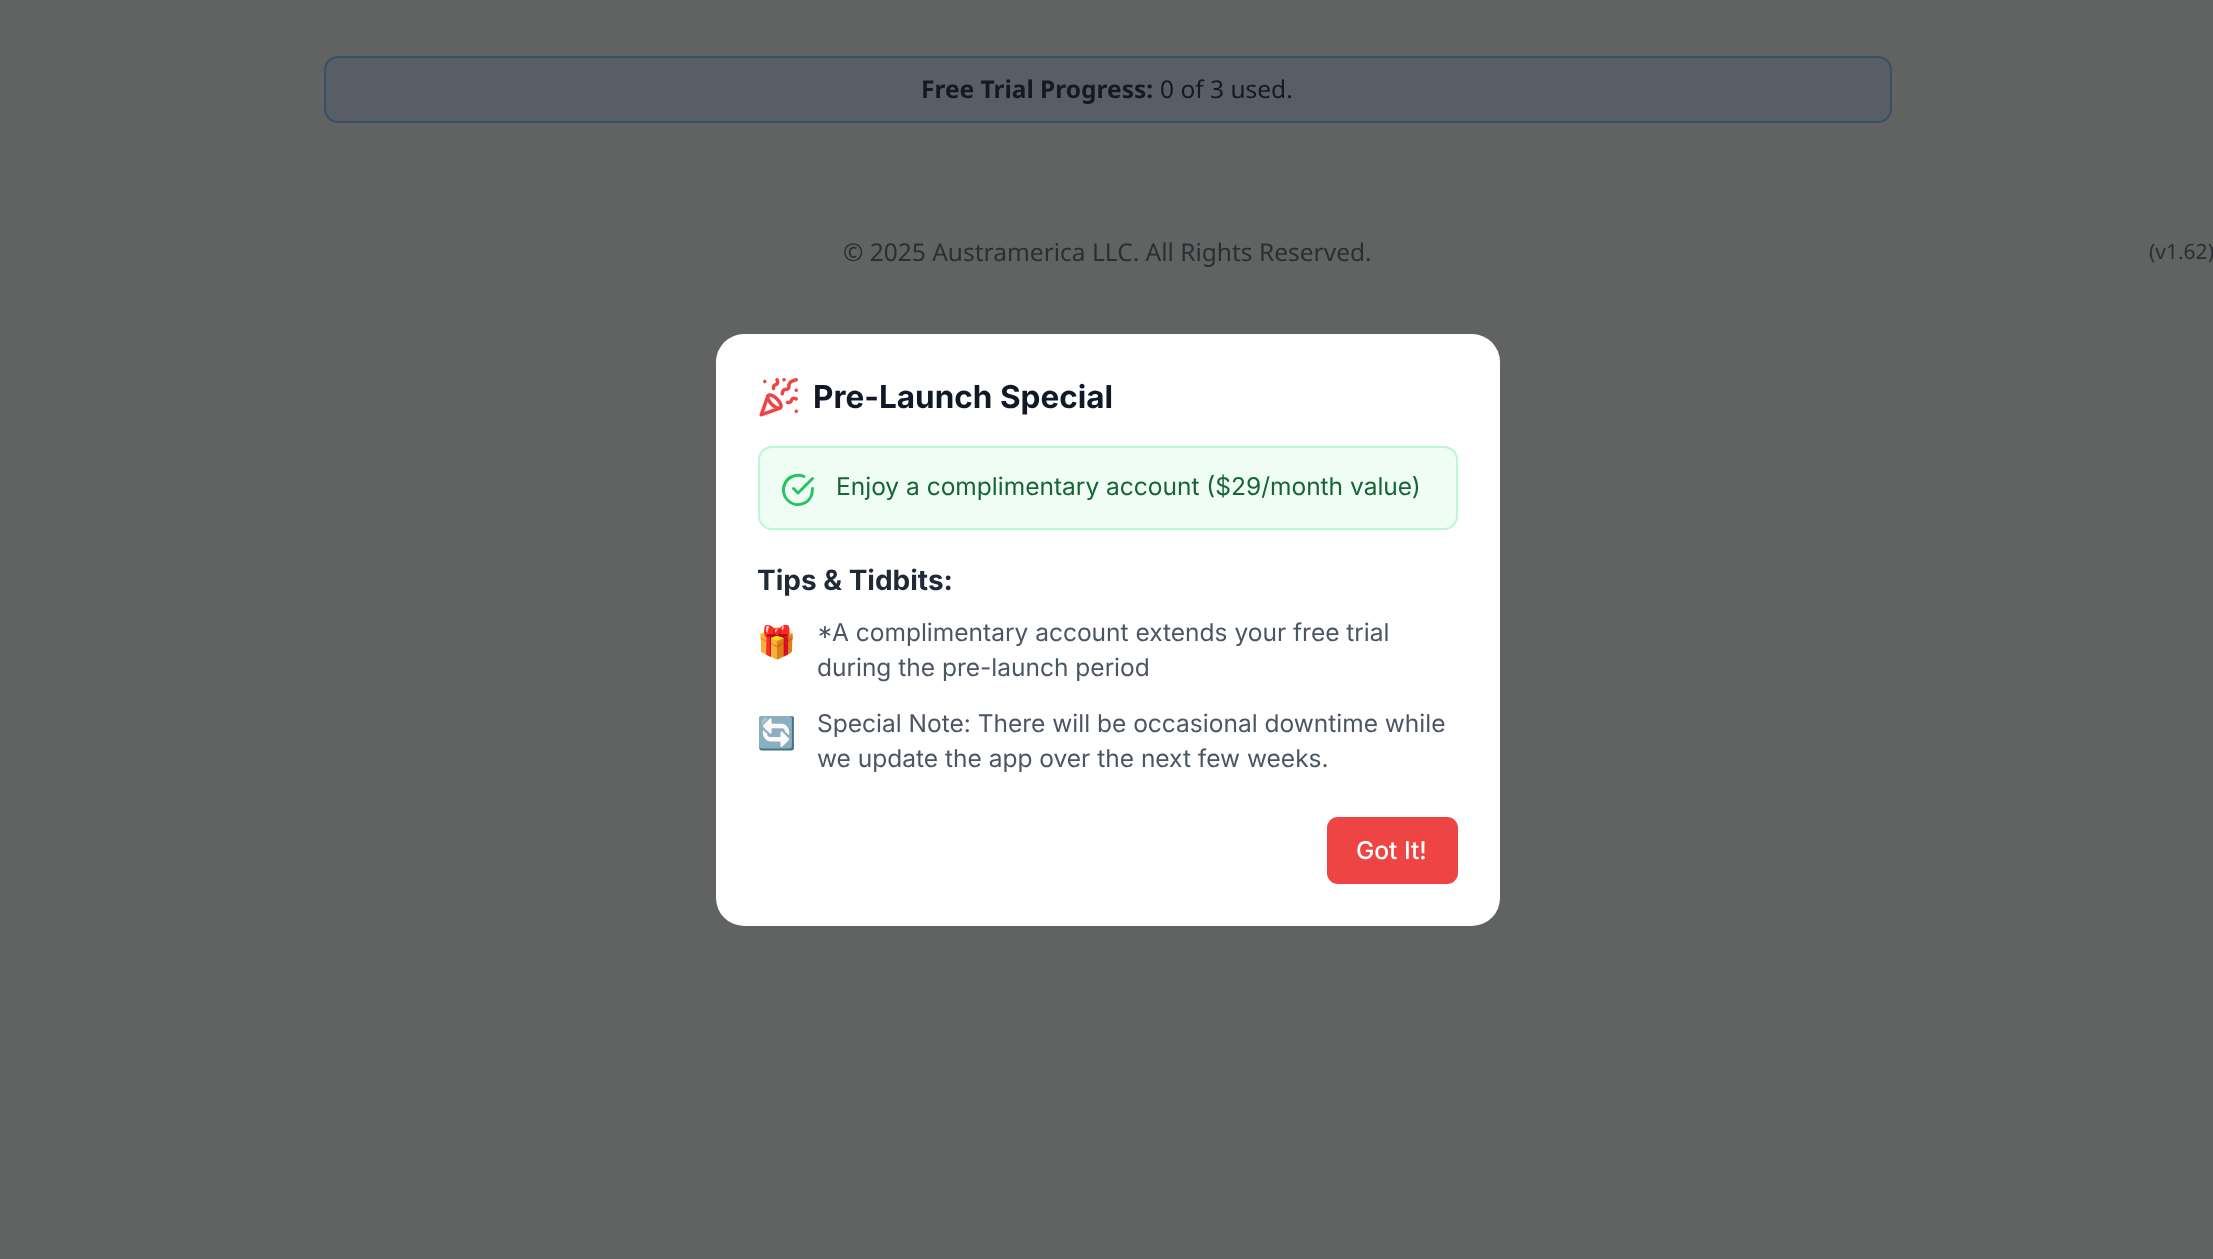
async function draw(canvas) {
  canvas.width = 2213;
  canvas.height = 1259;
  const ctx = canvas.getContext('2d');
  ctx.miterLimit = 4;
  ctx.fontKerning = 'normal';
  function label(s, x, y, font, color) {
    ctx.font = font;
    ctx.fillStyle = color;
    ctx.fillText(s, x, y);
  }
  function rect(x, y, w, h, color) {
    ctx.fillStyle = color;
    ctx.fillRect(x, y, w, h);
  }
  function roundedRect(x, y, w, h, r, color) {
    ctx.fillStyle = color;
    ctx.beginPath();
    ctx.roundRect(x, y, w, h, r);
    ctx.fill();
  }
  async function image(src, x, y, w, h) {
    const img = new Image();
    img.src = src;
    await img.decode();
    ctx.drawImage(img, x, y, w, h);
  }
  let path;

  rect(0, 0, 2213, 1259, '#616262');
  ctx.fillStyle = '#585e66';
  ctx.beginPath();
  ctx.roundRect(325, 57, 1566, 65, 13);
  ctx.fill();
  ctx.strokeStyle = '#3b4f65';
  ctx.lineWidth = 2;
  ctx.stroke();
  label('Free Trial Progress:', 921, 98, 'bold 24.5px Noto Sans', '#161a20');
  label('0 of 3 used.', 1160, 98, '24.5px Noto Sans', '#161a20');
  label('© 2025 Austramerica LLC. All Rights Reserved.', 843, 261, '24.5px Noto Sans', '#2b2e33');
  label('(v1.62)', 2149, 259, '21px Noto Sans', '#2b2e33');
  roundedRect(716, 334, 784, 592, 28, '#fff');
  await image('assets/img1.png', 759, 378, 39, 39);
  label('Pre-Launch Special', 813, 408, 'bold 31.5px Inter', '#111827');
  ctx.fillStyle = '#f0fdf4';
  ctx.beginPath();
  ctx.roundRect(759, 447, 698, 82, 13);
  ctx.fill();
  ctx.strokeStyle = '#bbf7d0';
  ctx.stroke();
  path = new Path2D('M812.5 488.5C812.5 494.5 810 500.5 804.5 503C791.5 509.5 778 495 785.5 482.5C787 479.5 789.5 477.5 792.5 476.5C796 475 800.5 475 804 476.5M793.5 488.5L798 493L812.5 478.5');
  ctx.strokeStyle = '#22c55e';
  ctx.lineWidth = 2.9;
  ctx.lineCap = 'round';
  ctx.lineJoin = 'round';
  ctx.stroke(path);
  label('Enjoy a complimentary account ($29/month value)', 836, 495, '24.5px Inter', '#166534');
  label('Tips & Tidbits:', 757, 590, 'bold 28px Inter', '#1f2937');
  label('🎁', 757, 653, '31.5px Noto Color Emoji', '#000');
  label('*A complimentary account extends your free trial', 817, 641, '24.5px Inter', '#4b5563');
  label('during the pre-launch period', 817, 676, '24.5px Inter', '#4b5563');
  label('🔄', 757, 744, '31.5px Noto Color Emoji', '#000');
  label('Special Note: There will be occasional downtime while', 817, 732, '24.5px Inter', '#4b5563');
  label('we update the app over the next few weeks.', 817, 767, '24.5px Inter', '#4b5563');
  roundedRect(1327, 817, 131, 67, 11, '#ef4444');
  label('Got It!', 1356, 859, '500 24.5px Inter', '#fff');
}

draw(document.querySelector('canvas'));
